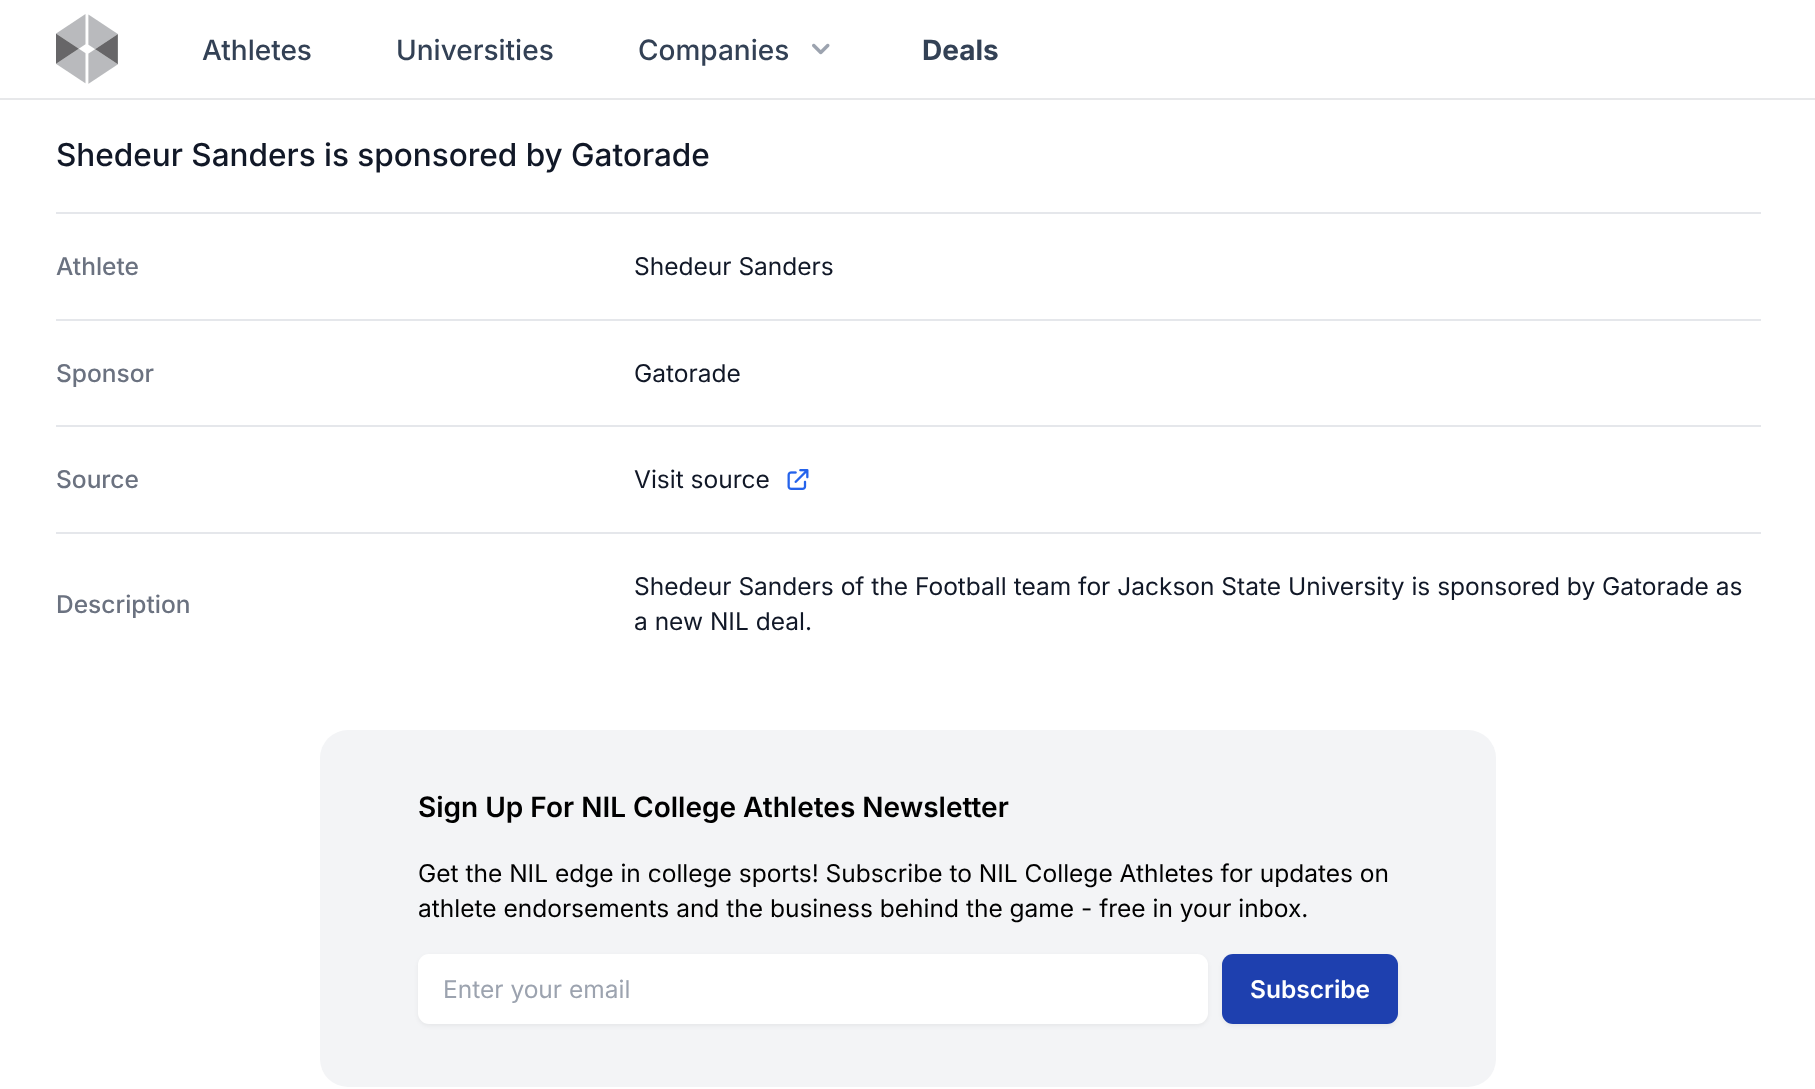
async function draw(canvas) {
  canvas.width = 1815;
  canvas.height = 1089;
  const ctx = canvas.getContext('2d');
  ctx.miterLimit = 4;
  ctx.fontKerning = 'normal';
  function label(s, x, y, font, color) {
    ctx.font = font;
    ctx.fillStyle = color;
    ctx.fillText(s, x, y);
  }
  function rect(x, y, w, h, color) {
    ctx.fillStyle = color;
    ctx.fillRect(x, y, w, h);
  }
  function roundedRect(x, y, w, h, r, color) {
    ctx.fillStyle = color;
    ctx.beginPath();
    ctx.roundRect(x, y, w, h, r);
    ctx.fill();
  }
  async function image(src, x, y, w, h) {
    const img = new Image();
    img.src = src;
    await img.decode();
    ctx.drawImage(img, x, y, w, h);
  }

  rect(0, 0, 1815, 1089, '#fff');
  rect(0, 98, 1815, 2, '#e7e8ea');
  await image('assets/img1.png', 56, 14, 62, 70);
  label('Athletes', 202, 60, '500 28px Inter', '#334155');
  label('Universities', 396, 60, '500 28px Inter', '#334155');
  label('Companies', 638, 60, '500 28px Inter', '#334155');
  await image('assets/img2.png', 812, 43, 18, 12);
  label('Deals', 922, 60, 'bold 28px Inter', '#334155');
  label('Shedeur Sanders is sponsored by Gatorade', 56, 166, '500 31.5px Inter', '#111827');
  rect(56, 212, 1705, 2, '#e5e7eb');
  label('Athlete', 56, 275, '500 24.5px Inter', '#6b7280');
  label('Shedeur Sanders', 634, 275, '24.5px Inter', '#111827');
  rect(56, 319, 1705, 2, '#e5e7eb');
  label('Sponsor', 56, 382, '500 24.5px Inter', '#6b7280');
  label('Gatorade', 634, 382, '24.5px Inter', '#111827');
  rect(56, 425, 1705, 2, '#e5e7eb');
  label('Source', 56, 488, '500 24.5px Inter', '#6b7280');
  label('Visit source', 634, 488, '24.5px Inter', '#111827');
  await image('assets/img3.png', 787, 469, 22, 21);
  rect(56, 532, 1705, 2, '#e5e7eb');
  label('Description', 56, 613, '500 24.5px Inter', '#6b7280');
  label('Shedeur Sanders of the Football team for Jackson State University is sponsored by Gatorade as', 634, 595, '24.5px Inter', '#111827');
  label('a new NIL deal.', 634, 630, '24.5px Inter', '#111827');
  roundedRect(320, 730, 1176, 357, 28, '#f3f4f6');
  label('Sign Up For NIL College Athletes Newsletter', 418, 817, '600 28px Inter', '#000');
  label('Get the NIL edge in college sports! Subscribe to NIL College Athletes for updates on', 418, 882, '24.5px Inter', '#000');
  label('athlete endorsements and the business behind the game - free in your inbox.', 418, 917, '24.5px Inter', '#000');
  ctx.fillStyle = '#0000000d';
  ctx.filter = 'blur(2px)';
  ctx.beginPath();
  ctx.roundRect(418, 956, 790, 70, 11);
  ctx.fill();
  ctx.filter = 'none';
  roundedRect(418, 954, 790, 70, 11, '#fff');
  label('Enter your email', 443, 998, '24.5px Inter', '#9ca3af');
  ctx.fillStyle = '#0000000d';
  ctx.filter = 'blur(2px)';
  ctx.beginPath();
  ctx.roundRect(1222, 956, 176, 70, 11);
  ctx.fill();
  ctx.filter = 'none';
  roundedRect(1222, 954, 176, 70, 11, '#1e40af');
  label('Subscribe', 1250, 998, '600 24.5px Inter', '#fff');
}

draw(document.querySelector('canvas'));
